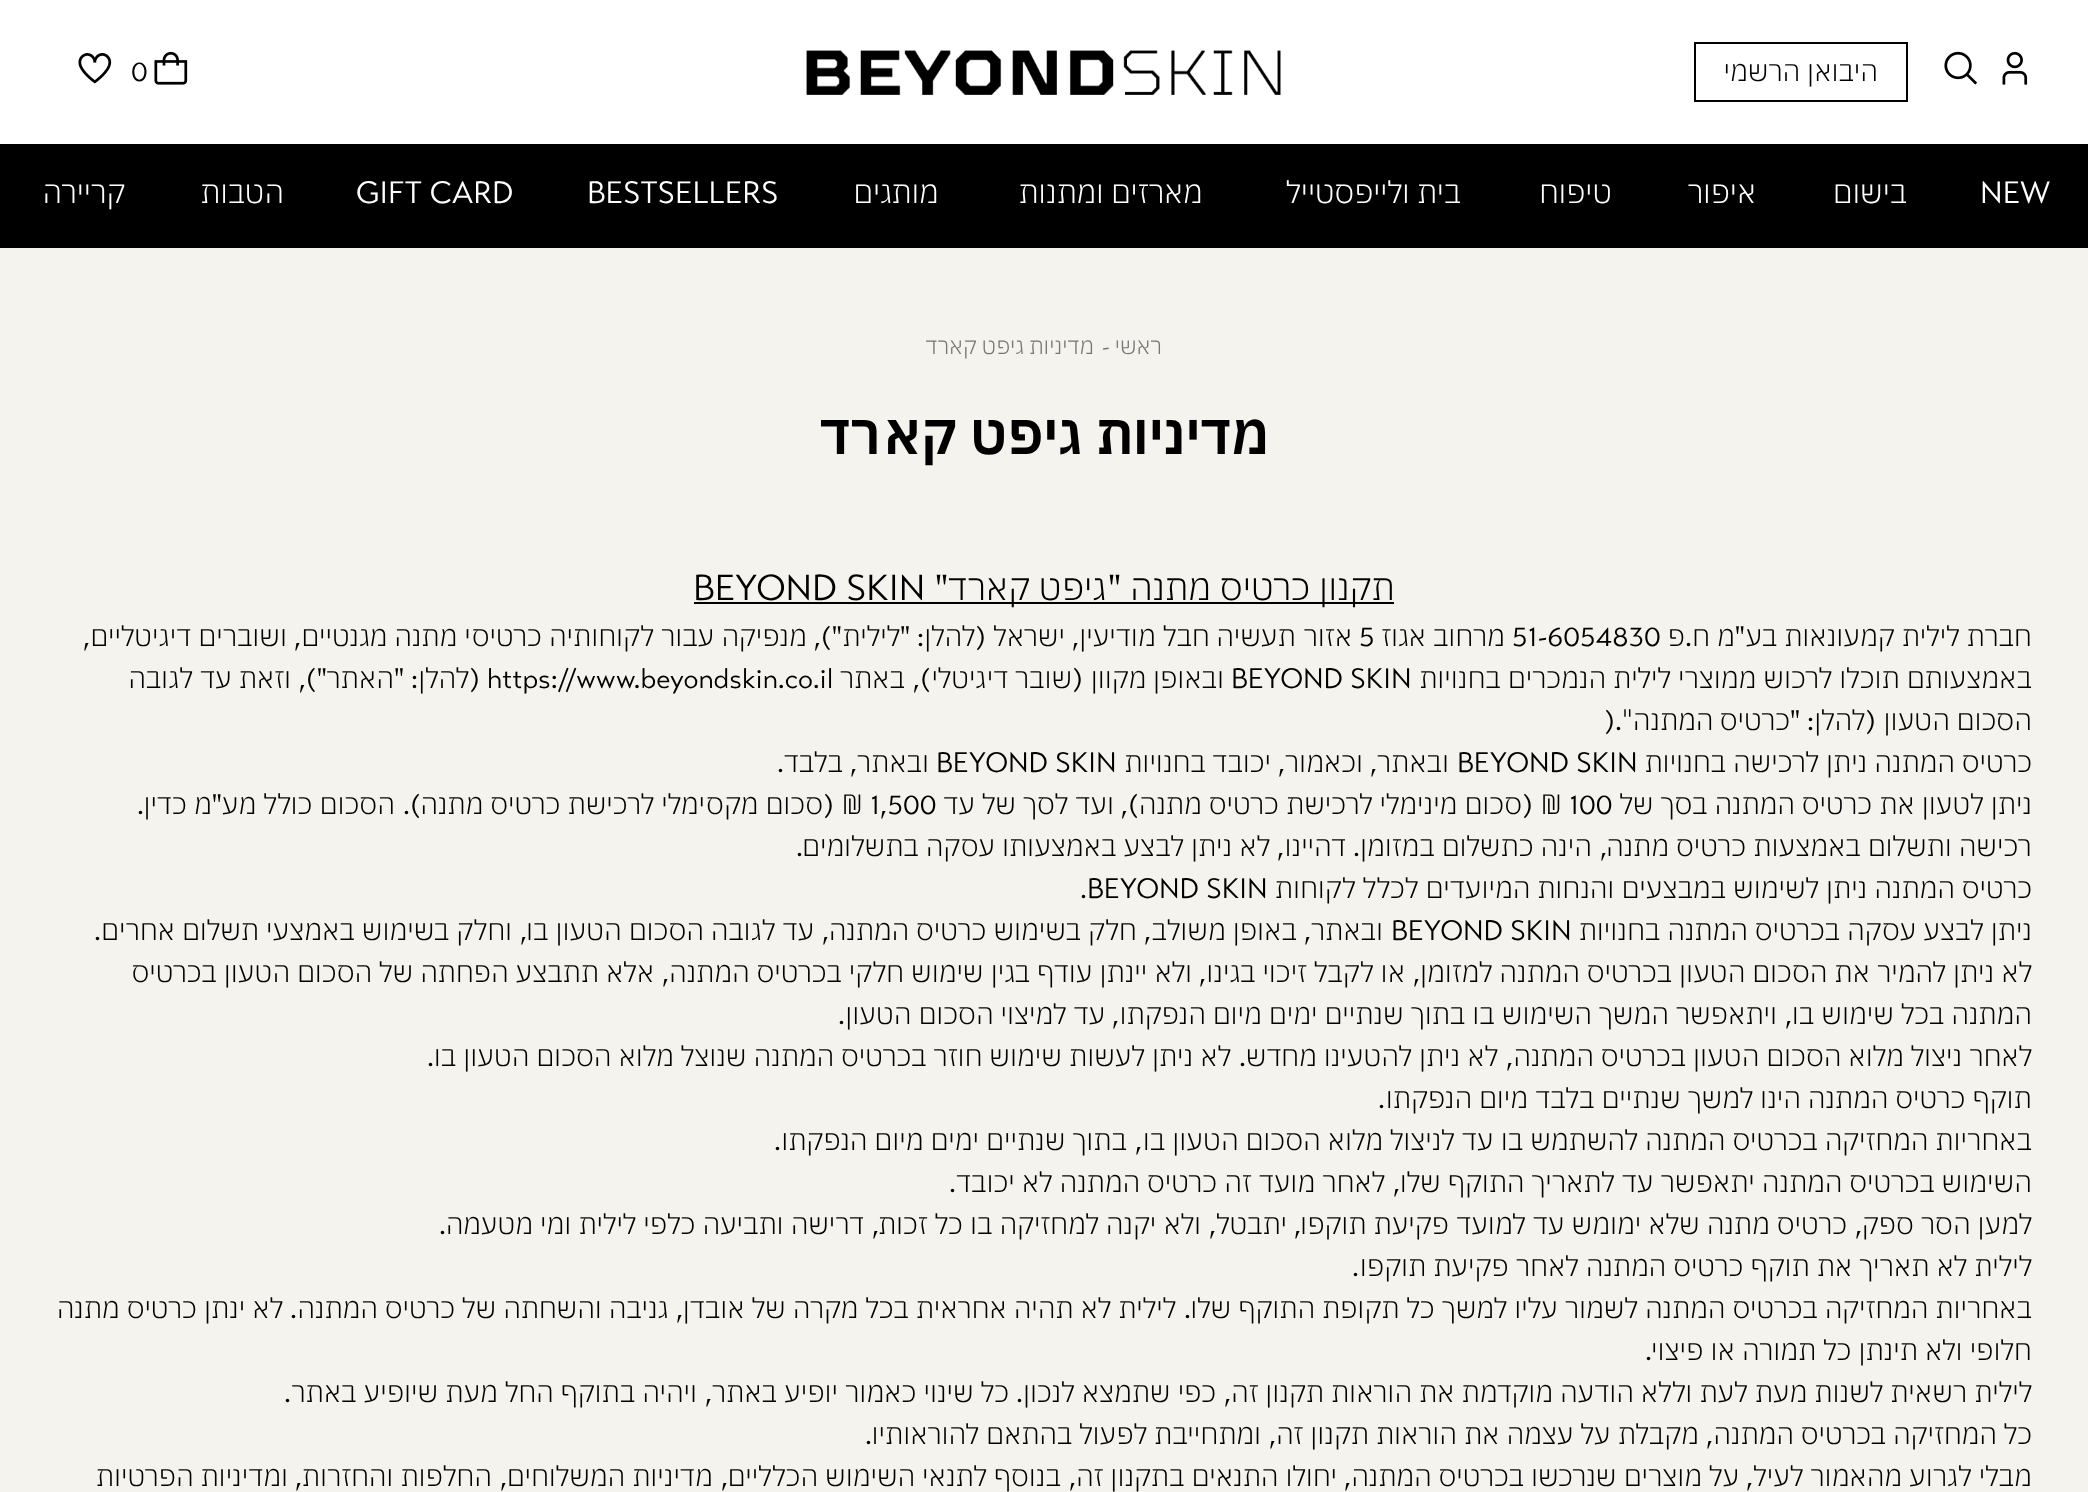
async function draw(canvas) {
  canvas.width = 2088;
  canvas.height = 1492;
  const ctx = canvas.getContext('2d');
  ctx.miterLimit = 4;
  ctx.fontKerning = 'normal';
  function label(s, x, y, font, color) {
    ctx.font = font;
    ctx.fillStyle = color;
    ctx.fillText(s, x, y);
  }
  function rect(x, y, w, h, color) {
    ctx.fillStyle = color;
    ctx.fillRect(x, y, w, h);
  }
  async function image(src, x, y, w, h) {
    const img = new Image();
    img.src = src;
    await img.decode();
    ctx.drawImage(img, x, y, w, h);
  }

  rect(0, 0, 2088, 1492, '#f5f3ed');
  rect(0, 0, 2088, 144, '#fff');
  await image('assets/img1.png', 2002, 51, 26, 34);
  await image('assets/img2.png', 1944, 51, 34, 34);
  ctx.strokeStyle = '#000';
  ctx.lineWidth = 2;
  ctx.strokeRect(1695, 43, 212, 58);
  ctx.wordSpacing = '0.5px';
  ctx.direction = 'rtl';
  label('היבואן הרשמי', 1878, 81, '300 28px IBM Plex Sans Hebrew', '#000');
  await image('assets/img3.png', 806, 50, 475, 45);
  await image('assets/img4.png', 154, 51, 34, 34);
  ctx.wordSpacing = '0px';
  ctx.direction = 'ltr';
  label('0', 131, 81, '28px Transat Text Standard', '#000');
  await image('assets/img5.png', 78, 53, 34, 31);
  rect(0, 144, 2088, 104, '#000');
  label('NEW', 1980, 203, '30.75px Transat Text Standard', '#fff');
  ctx.direction = 'rtl';
  label('בישום', 1907, 203, '300 30.75px IBM Plex Sans Hebrew', '#fff');
  label('איפור', 1756, 203, '300 30.75px IBM Plex Sans Hebrew', '#fff');
  label('טיפוח', 1612, 203, '300 30.75px IBM Plex Sans Hebrew', '#fff');
  label('בית ולייפסטייל', 1461, 203, '300 30.75px IBM Plex Sans Hebrew', '#fff');
  label('מארזים ומתנות', 1203, 203, '300 30.75px IBM Plex Sans Hebrew', '#fff');
  label('מותגים', 939, 203, '300 30.75px IBM Plex Sans Hebrew', '#fff');
  ctx.direction = 'ltr';
  label('BESTSELLERS', 587, 203, '30.75px Transat Text Standard', '#fff');
  label('GIFT CARD', 356, 203, '30.75px Transat Text Standard', '#fff');
  ctx.direction = 'rtl';
  label('הטבות', 284, 203, '300 30.75px IBM Plex Sans Hebrew', '#fff');
  label('קריירה', 125, 203, '300 30.75px IBM Plex Sans Hebrew', '#fff');
  label('ראשי', 1162, 354, '300 22.5px IBM Plex Sans Hebrew', '#757575');
  ctx.direction = 'ltr';
  label('-', 1102, 354, '22.5px Transat Text Standard', '#757575');
  ctx.direction = 'rtl';
  label('מדיניות גיפט קארד', 1094, 354, '300 22.5px IBM Plex Sans Hebrew', '#757575');
  ctx.wordSpacing = '1px';
  label('מדיניות גיפט קארד', 1269, 454, '600 56px IBM Plex Sans Hebrew', '#000');
  rect(694, 602, 700, 2, '#000');
  ctx.wordSpacing = '0.5px';
  label('תקנון כרטיס מתנה', 1395, 600, '300 36px IBM Plex Sans Hebrew', '#000');
  ctx.wordSpacing = '0px';
  label('"', 1121, 600, '36px Transat Text Standard', '#000');
  ctx.wordSpacing = '0.5px';
  label('גיפט קארד', 1107, 600, '300 36px IBM Plex Sans Hebrew', '#000');
  ctx.wordSpacing = '0px';
  label('"', 948, 600, '36px Transat Text Standard', '#000');
  ctx.direction = 'ltr';
  label('BEYOND SKIN', 693, 600, '36px Transat Text Standard', '#000');
  ctx.wordSpacing = '0.5px';
  ctx.direction = 'rtl';
  label('חברת לילית קמעונאות בע', 2032, 646, '300 28px IBM Plex Sans Hebrew', '#000');
  ctx.wordSpacing = '0px';
  label('"', 1745, 646, '28px Transat Text Standard', '#000');
  ctx.wordSpacing = '0.5px';
  label('מ ח', 1735, 646, '300 28px IBM Plex Sans Hebrew', '#000');
  ctx.wordSpacing = '0px';
  label('.', 1692, 646, '28px Transat Text Standard', '#000');
  label('פ', 1685, 646, '300 28px IBM Plex Sans Hebrew', '#000');
  ctx.direction = 'ltr';
  label('51-6054830', 1512, 646, '28px Transat Text Standard', '#000');
  ctx.wordSpacing = '0.5px';
  ctx.direction = 'rtl';
  label('מרחוב אגוז', 1505, 646, '300 28px IBM Plex Sans Hebrew', '#000');
  ctx.wordSpacing = '0px';
  ctx.direction = 'ltr';
  label('5', 1359, 646, '28px Transat Text Standard', '#000');
  ctx.direction = 'rtl';
  label('אזור', 1352, 646, '300 28px IBM Plex Sans Hebrew', '#000');
  label('תעשיה', 1296, 646, '300 28px IBM Plex Sans Hebrew', '#000');
  label('חבל', 1210, 646, '300 28px IBM Plex Sans Hebrew', '#000');
  label('מודיעין', 1156, 646, '300 28px IBM Plex Sans Hebrew', '#000');
  label(',', 1079, 646, '28px Transat Text Standard', '#000');
  label('ישראל', 1065, 646, '300 28px IBM Plex Sans Hebrew', '#000');
  label('(', 986, 646, '28px Transat Text Standard', '#000');
  label('להלן', 975, 646, '300 28px IBM Plex Sans Hebrew', '#000');
  label(': "', 924, 646, '28px Transat Text Standard', '#000');
  label('לילית', 900, 646, '300 28px IBM Plex Sans Hebrew', '#000');
  label('"),', 842, 646, '28px Transat Text Standard', '#000');
  ctx.wordSpacing = '0.5px';
  label('מנפיקה עבור לקוחותיה כרטיסי מתנה מגנטיים', 807, 646, '300 28px IBM Plex Sans Hebrew', '#000');
  ctx.wordSpacing = '0px';
  label(',', 301, 646, '28px Transat Text Standard', '#000');
  ctx.wordSpacing = '0.5px';
  label('ושוברים דיגיטליים', 287, 646, '300 28px IBM Plex Sans Hebrew', '#000');
  ctx.wordSpacing = '0px';
  label(',', 90, 646, '28px Transat Text Standard', '#000');
  ctx.wordSpacing = '0.5px';
  label('באמצעותם תוכלו לרכוש ממוצרי לילית הנמכרים בחנויות', 2032, 688, '300 28px IBM Plex Sans Hebrew', '#000');
  ctx.wordSpacing = '0px';
  ctx.direction = 'ltr';
  label('BEYOND SKIN', 1231, 688, '28px Transat Text Standard', '#000');
  ctx.direction = 'rtl';
  label('ובאופן מקוון', 1224, 688, '300 28px IBM Plex Sans Hebrew', '#000');
  label('(', 1083, 688, '28px Transat Text Standard', '#000');
  label('שובר דיגיטלי', 1072, 688, '300 28px IBM Plex Sans Hebrew', '#000');
  label('),', 931, 688, '28px Transat Text Standard', '#000');
  label('באתר', 905, 688, '300 28px IBM Plex Sans Hebrew', '#000');
  ctx.direction = 'ltr';
  label('https://www.beyondskin.co.il', 487, 688, '28px Transat Text Standard', '#000');
  ctx.direction = 'rtl';
  label('(', 480, 688, '28px Transat Text Standard', '#000');
  label('להלן', 469, 688, '300 28px IBM Plex Sans Hebrew', '#000');
  label(': "', 418, 688, '28px Transat Text Standard', '#000');
  label('ה', 394, 688, '300 28px IBM Plex Sans Hebrew', '#000');
  label('אתר', 376, 688, '300 28px IBM Plex Sans Hebrew', '#000');
  label('"),', 327, 688, '28px Transat Text Standard', '#000');
  ctx.wordSpacing = '0.5px';
  label('וזאת עד לגובה', 291, 688, '300 28px IBM Plex Sans Hebrew', '#000');
  ctx.wordSpacing = '0px';
  label('הסכום', 2032, 730, '300 28px IBM Plex Sans Hebrew', '#000');
  label('הטעון', 1950, 730, '300 28px IBM Plex Sans Hebrew', '#000');
  label('(', 1876, 730, '28px Transat Text Standard', '#000');
  label('להלן', 1865, 730, '300 28px IBM Plex Sans Hebrew', '#000');
  label(': "', 1814, 730, '28px Transat Text Standard', '#000');
  label('כרטיס המתנה"', 1790, 730, '300 28px IBM Plex Sans Hebrew', '#000');
  ctx.direction = 'ltr';
  label(').', 1604, 730, '28px Transat Text Standard', '#000');
  ctx.wordSpacing = '0.5px';
  ctx.direction = 'rtl';
  label('כרטיס המתנה ניתן לרכישה בחנויות', 2032, 772, '300 28px IBM Plex Sans Hebrew', '#000');
  ctx.wordSpacing = '0px';
  ctx.direction = 'ltr';
  label('BEYOND SKIN', 1457, 772, '28px Transat Text Standard', '#000');
  ctx.direction = 'rtl';
  label('ובאתר', 1449, 772, '300 28px IBM Plex Sans Hebrew', '#000');
  label(',', 1377, 772, '28px Transat Text Standard', '#000');
  label('וכאמור', 1363, 772, '300 28px IBM Plex Sans Hebrew', '#000');
  label(',', 1285, 772, '28px Transat Text Standard', '#000');
  label('יכובד בחנויות', 1271, 772, '300 28px IBM Plex Sans Hebrew', '#000');
  ctx.direction = 'ltr';
  label('BEYOND SKIN', 936, 772, '28px Transat Text Standard', '#000');
  ctx.direction = 'rtl';
  label('ובאתר', 929, 772, '300 28px IBM Plex Sans Hebrew', '#000');
  label(',', 857, 772, '28px Transat Text Standard', '#000');
  label('בלבד', 843, 772, '300 28px IBM Plex Sans Hebrew', '#000');
  label('.', 784, 772, '28px Transat Text Standard', '#000');
  ctx.wordSpacing = '0.5px';
  label('ניתן לטעון את כרטיס המתנה בסך של', 2032, 814, '300 28px IBM Plex Sans Hebrew', '#000');
  ctx.wordSpacing = '0px';
  ctx.direction = 'ltr';
  label('100', 1569, 814, '28px Transat Text Standard', '#000');
  ctx.direction = 'rtl';
  label('₪', 1562, 814, '300 28px IBM Plex Sans Hebrew', '#000');
  label('(', 1533, 814, '28px Transat Text Standard', '#000');
  ctx.wordSpacing = '0.5px';
  label('סכום מינימלי לרכישת כרטיס מתנה', 1522, 814, '300 28px IBM Plex Sans Hebrew', '#000');
  ctx.wordSpacing = '0px';
  label('),', 1139, 814, '28px Transat Text Standard', '#000');
  ctx.wordSpacing = '0.5px';
  label('ועד לסך של עד', 1114, 814, '300 28px IBM Plex Sans Hebrew', '#000');
  ctx.wordSpacing = '0px';
  ctx.direction = 'ltr';
  label('1,500', 870, 814, '28px Transat Text Standard', '#000');
  ctx.direction = 'rtl';
  label('₪', 863, 814, '300 28px IBM Plex Sans Hebrew', '#000');
  label('(', 834, 814, '28px Transat Text Standard', '#000');
  ctx.wordSpacing = '0.5px';
  label('סכום מקסימלי לרכישת כרטיס מתנה', 823, 814, '300 28px IBM Plex Sans Hebrew', '#000');
  ctx.wordSpacing = '0px';
  label(').', 421, 814, '28px Transat Text Standard', '#000');
  ctx.wordSpacing = '0.5px';
  label('הסכום כולל מע', 395, 814, '300 28px IBM Plex Sans Hebrew', '#000');
  ctx.wordSpacing = '0px';
  label('"', 222, 814, '28px Transat Text Standard', '#000');
  ctx.wordSpacing = '0.5px';
  label('מ כדין', 212, 814, '300 28px IBM Plex Sans Hebrew', '#000');
  ctx.wordSpacing = '0px';
  label('.', 144, 814, '28px Transat Text Standard', '#000');
  ctx.wordSpacing = '0.5px';
  label('רכישה ותשלום באמצעות כרטיס מתנה', 2032, 856, '300 28px IBM Plex Sans Hebrew', '#000');
  ctx.wordSpacing = '0px';
  label(',', 1607, 856, '28px Transat Text Standard', '#000');
  ctx.wordSpacing = '0.5px';
  label('הינה כתשלום במזומן', 1592, 856, '300 28px IBM Plex Sans Hebrew', '#000');
  ctx.wordSpacing = '0px';
  label('.', 1360, 856, '28px Transat Text Standard', '#000');
  label('דהיינו', 1346, 856, '300 28px IBM Plex Sans Hebrew', '#000');
  label(',', 1284, 856, '28px Transat Text Standard', '#000');
  ctx.wordSpacing = '0.5px';
  label('לא ניתן לבצע באמצעותו עסקה בתשלומים', 1270, 856, '300 28px IBM Plex Sans Hebrew', '#000');
  ctx.wordSpacing = '0px';
  label('.', 803, 856, '28px Transat Text Standard', '#000');
  ctx.wordSpacing = '0.5px';
  label('כרטיס המתנה ניתן לשימוש במבצעים והנחות המיועדים לכלל לקוחות', 2032, 898, '300 28px IBM Plex Sans Hebrew', '#000');
  ctx.wordSpacing = '0px';
  ctx.direction = 'ltr';
  label('BEYOND SKIN', 1087, 898, '28px Transat Text Standard', '#000');
  label('.', 1080, 898, '28px Transat Text Standard', '#000');
  ctx.wordSpacing = '0.5px';
  ctx.direction = 'rtl';
  label('ניתן לבצע עסקה בכרטיס המתנה בחנויות', 2032, 940, '300 28px IBM Plex Sans Hebrew', '#000');
  ctx.wordSpacing = '0px';
  ctx.direction = 'ltr';
  label('BEYOND SKIN', 1391, 940, '28px Transat Text Standard', '#000');
  ctx.direction = 'rtl';
  label('ובאתר', 1383, 940, '300 28px IBM Plex Sans Hebrew', '#000');
  label(',', 1311, 940, '28px Transat Text Standard', '#000');
  ctx.wordSpacing = '0.5px';
  label('באופן משולב', 1297, 940, '300 28px IBM Plex Sans Hebrew', '#000');
  ctx.wordSpacing = '0px';
  label(',', 1151, 940, '28px Transat Text Standard', '#000');
  ctx.wordSpacing = '0.5px';
  label('חלק בשימוש כרטיס המתנה', 1137, 940, '300 28px IBM Plex Sans Hebrew', '#000');
  ctx.wordSpacing = '0px';
  label(',', 829, 940, '28px Transat Text Standard', '#000');
  ctx.wordSpacing = '0.5px';
  label('עד לגובה הסכום הטעון בו', 814, 940, '300 28px IBM Plex Sans Hebrew', '#000');
  ctx.wordSpacing = '0px';
  label(',', 527, 940, '28px Transat Text Standard', '#000');
  ctx.wordSpacing = '0.5px';
  label('וחלק בשימוש באמצעי תשלום אחרים', 512, 940, '300 28px IBM Plex Sans Hebrew', '#000');
  ctx.wordSpacing = '0px';
  label('.', 101, 940, '28px Transat Text Standard', '#000');
  ctx.wordSpacing = '0.5px';
  label('לא ניתן להמיר את הסכום הטעון בכרטיס המתנה למזומן', 2032, 982, '300 28px IBM Plex Sans Hebrew', '#000');
  ctx.wordSpacing = '0px';
  label(',', 1420, 982, '28px Transat Text Standard', '#000');
  ctx.wordSpacing = '0.5px';
  label('או לקבל זיכוי בגינו', 1405, 982, '300 28px IBM Plex Sans Hebrew', '#000');
  ctx.wordSpacing = '0px';
  label(',', 1206, 982, '28px Transat Text Standard', '#000');
  ctx.wordSpacing = '0.5px';
  label('ולא יינתן עודף בגין שימוש חלקי בכרטיס המתנה', 1192, 982, '300 28px IBM Plex Sans Hebrew', '#000');
  ctx.wordSpacing = '0px';
  label(',', 669, 982, '28px Transat Text Standard', '#000');
  ctx.wordSpacing = '0.5px';
  label('אלא תתבצע הפחתה של הסכום הטעון בכרטיס', 654, 982, '300 28px IBM Plex Sans Hebrew', '#000');
  label('המתנה בכל שימוש בו', 2032, 1024, '300 28px IBM Plex Sans Hebrew', '#000');
  ctx.wordSpacing = '0px';
  label(',', 1792, 1024, '28px Transat Text Standard', '#000');
  ctx.wordSpacing = '0.5px';
  label('ויתאפשר המשך השימוש בו בתוך שנתיים ימים מיום הנפקתו', 1777, 1024, '300 28px IBM Plex Sans Hebrew', '#000');
  ctx.wordSpacing = '0px';
  label(',', 1119, 1024, '28px Transat Text Standard', '#000');
  ctx.wordSpacing = '0.5px';
  label('עד למיצוי הסכום הטעון', 1105, 1024, '300 28px IBM Plex Sans Hebrew', '#000');
  ctx.wordSpacing = '0px';
  label('.', 845, 1024, '28px Transat Text Standard', '#000');
  ctx.wordSpacing = '0.5px';
  label('לאחר ניצול מלוא הסכום הטעון בכרטיס המתנה', 2032, 1066, '300 28px IBM Plex Sans Hebrew', '#000');
  ctx.wordSpacing = '0px';
  label(',', 1513, 1066, '28px Transat Text Standard', '#000');
  ctx.wordSpacing = '0.5px';
  label('לא ניתן להטעינו מחדש', 1498, 1066, '300 28px IBM Plex Sans Hebrew', '#000');
  ctx.wordSpacing = '0px';
  label('.', 1246, 1066, '28px Transat Text Standard', '#000');
  ctx.wordSpacing = '0.5px';
  label('לא ניתן לעשות שימוש חוזר בכרטיס המתנה שנוצל מלוא הסכום הטעון בו', 1231, 1066, '300 28px IBM Plex Sans Hebrew', '#000');
  ctx.wordSpacing = '0px';
  label('.', 434, 1066, '28px Transat Text Standard', '#000');
  ctx.wordSpacing = '0.5px';
  label('תוקף כרטיס המתנה הינו למשך שנתיים בלבד מיום הנפקתו', 2032, 1108, '300 28px IBM Plex Sans Hebrew', '#000');
  ctx.wordSpacing = '0px';
  label('.', 1385, 1108, '28px Transat Text Standard', '#000');
  ctx.wordSpacing = '0.5px';
  label('באחריות המחזיקה בכרטיס המתנה להשתמש בו עד לניצול מלוא הסכום הטעון בו', 2032, 1150, '300 28px IBM Plex Sans Hebrew', '#000');
  ctx.wordSpacing = '0px';
  label(',', 1142, 1150, '28px Transat Text Standard', '#000');
  ctx.wordSpacing = '0.5px';
  label('בתוך שנתיים ימים מיום הנפקתו', 1127, 1150, '300 28px IBM Plex Sans Hebrew', '#000');
  ctx.wordSpacing = '0px';
  label('.', 781, 1150, '28px Transat Text Standard', '#000');
  ctx.wordSpacing = '0.5px';
  label('השימוש בכרטיס המתנה יתאפשר עד לתאריך התוקף שלו', 2032, 1192, '300 28px IBM Plex Sans Hebrew', '#000');
  ctx.wordSpacing = '0px';
  label(',', 1400, 1192, '28px Transat Text Standard', '#000');
  ctx.wordSpacing = '0.5px';
  label('לאחר מועד זה כרטיס המתנה לא יכובד', 1385, 1192, '300 28px IBM Plex Sans Hebrew', '#000');
  ctx.wordSpacing = '0px';
  label('.', 956, 1192, '28px Transat Text Standard', '#000');
  ctx.wordSpacing = '0.5px';
  label('למען הסר ספק', 2032, 1234, '300 28px IBM Plex Sans Hebrew', '#000');
  ctx.wordSpacing = '0px';
  label(',', 1862, 1234, '28px Transat Text Standard', '#000');
  ctx.wordSpacing = '0.5px';
  label('כרטיס מתנה שלא ימומש עד למועד פקיעת תוקפו', 1847, 1234, '300 28px IBM Plex Sans Hebrew', '#000');
  ctx.wordSpacing = '0px';
  label(',', 1301, 1234, '28px Transat Text Standard', '#000');
  label('יתבטל', 1287, 1234, '300 28px IBM Plex Sans Hebrew', '#000');
  label(',', 1216, 1234, '28px Transat Text Standard', '#000');
  ctx.wordSpacing = '0.5px';
  label('ולא יקנה למחזיקה בו כל זכות', 1201, 1234, '300 28px IBM Plex Sans Hebrew', '#000');
  ctx.wordSpacing = '0px';
  label(',', 879, 1234, '28px Transat Text Standard', '#000');
  ctx.wordSpacing = '0.5px';
  label('דרישה ותביעה כלפי לילית ומי מטעמה', 864, 1234, '300 28px IBM Plex Sans Hebrew', '#000');
  ctx.wordSpacing = '0px';
  label('.', 446, 1234, '28px Transat Text Standard', '#000');
  ctx.wordSpacing = '0.5px';
  label('לילית לא תאריך את תוקף כרטיס המתנה לאחר פקיעת תוקפו', 2032, 1276, '300 28px IBM Plex Sans Hebrew', '#000');
  ctx.wordSpacing = '0px';
  label('.', 1359, 1276, '28px Transat Text Standard', '#000');
  ctx.wordSpacing = '0.5px';
  label('באחריות המחזיקה בכרטיס המתנה לשמור עליו למשך כל תקופת התוקף שלו', 2032, 1318, '300 28px IBM Plex Sans Hebrew', '#000');
  ctx.wordSpacing = '0px';
  label('.', 1191, 1318, '28px Transat Text Standard', '#000');
  ctx.wordSpacing = '0.5px';
  label('לילית לא תהיה אחראית בכל מקרה של אובדן', 1176, 1318, '300 28px IBM Plex Sans Hebrew', '#000');
  ctx.wordSpacing = '0px';
  label(',', 683, 1318, '28px Transat Text Standard', '#000');
  ctx.wordSpacing = '0.5px';
  label('גניבה והשחתה של כרטיס המתנה', 669, 1318, '300 28px IBM Plex Sans Hebrew', '#000');
  ctx.wordSpacing = '0px';
  label('.', 297, 1318, '28px Transat Text Standard', '#000');
  ctx.wordSpacing = '0.5px';
  label('לא ינתן כרטיס מתנה', 283, 1318, '300 28px IBM Plex Sans Hebrew', '#000');
  label('חלופי ולא תינתן כל תמורה או פיצוי', 2032, 1360, '300 28px IBM Plex Sans Hebrew', '#000');
  ctx.wordSpacing = '0px';
  label('.', 1652, 1360, '28px Transat Text Standard', '#000');
  ctx.wordSpacing = '0.5px';
  label('לילית רשאית לשנות מעת לעת וללא הודעה מוקדמת את הוראות תקנון זה', 2032, 1402, '300 28px IBM Plex Sans Hebrew', '#000');
  ctx.wordSpacing = '0px';
  label(',', 1231, 1402, '28px Transat Text Standard', '#000');
  ctx.wordSpacing = '0.5px';
  label('כפי שתמצא לנכון', 1216, 1402, '300 28px IBM Plex Sans Hebrew', '#000');
  ctx.wordSpacing = '0px';
  label('.', 1023, 1402, '28px Transat Text Standard', '#000');
  ctx.wordSpacing = '0.5px';
  label('כל שינוי כאמור יופיע באתר', 1009, 1402, '300 28px IBM Plex Sans Hebrew', '#000');
  ctx.wordSpacing = '0px';
  label(',', 712, 1402, '28px Transat Text Standard', '#000');
  ctx.wordSpacing = '0.5px';
  label('ויהיה בתוקף החל מעת שיופיע באתר', 697, 1402, '300 28px IBM Plex Sans Hebrew', '#000');
  ctx.wordSpacing = '0px';
  label('.', 291, 1402, '28px Transat Text Standard', '#000');
  ctx.wordSpacing = '0.5px';
  label('כל המחזיקה בכרטיס המתנה', 2032, 1444, '300 28px IBM Plex Sans Hebrew', '#000');
  ctx.wordSpacing = '0px';
  label(',', 1713, 1444, '28px Transat Text Standard', '#000');
  ctx.wordSpacing = '0.5px';
  label('מקבלת על עצמה את הוראות תקנון זה', 1699, 1444, '300 28px IBM Plex Sans Hebrew', '#000');
  ctx.wordSpacing = '0px';
  label(',', 1276, 1444, '28px Transat Text Standard', '#000');
  ctx.wordSpacing = '0.5px';
  label('ומתחייבת לפעול בהתאם להוראותיו', 1261, 1444, '300 28px IBM Plex Sans Hebrew', '#000');
  ctx.wordSpacing = '0px';
  label('.', 872, 1444, '28px Transat Text Standard', '#000');
  ctx.wordSpacing = '0.5px';
  label('מבלי לגרוע מהאמור לעיל', 2032, 1486, '300 28px IBM Plex Sans Hebrew', '#000');
  ctx.wordSpacing = '0px';
  label(',', 1753, 1486, '28px Transat Text Standard', '#000');
  ctx.wordSpacing = '0.5px';
  label('על מוצרים שנרכשו בכרטיס המתנה', 1739, 1486, '300 28px IBM Plex Sans Hebrew', '#000');
  ctx.wordSpacing = '0px';
  label(',', 1351, 1486, '28px Transat Text Standard', '#000');
  ctx.wordSpacing = '0.5px';
  label('יחולו התנאים בתקנון זה', 1337, 1486, '300 28px IBM Plex Sans Hebrew', '#000');
  ctx.wordSpacing = '0px';
  label(',', 1076, 1486, '28px Transat Text Standard', '#000');
  ctx.wordSpacing = '0.5px';
  label('בנוסף לתנאי השימוש הכלליים', 1061, 1486, '300 28px IBM Plex Sans Hebrew', '#000');
  ctx.wordSpacing = '0px';
  label(',', 728, 1486, '28px Transat Text Standard', '#000');
  ctx.wordSpacing = '0.5px';
  label('מדיניות המשלוחים', 713, 1486, '300 28px IBM Plex Sans Hebrew', '#000');
  ctx.wordSpacing = '0px';
  label(',', 507, 1486, '28px Transat Text Standard', '#000');
  ctx.wordSpacing = '0.5px';
  label('החלפות והחזרות', 492, 1486, '300 28px IBM Plex Sans Hebrew', '#000');
  ctx.wordSpacing = '0px';
  label(',', 302, 1486, '28px Transat Text Standard', '#000');
  ctx.wordSpacing = '0.5px';
  label('ומדיניות הפרטיות', 288, 1486, '300 28px IBM Plex Sans Hebrew', '#000');
}

draw(document.querySelector('canvas'));
